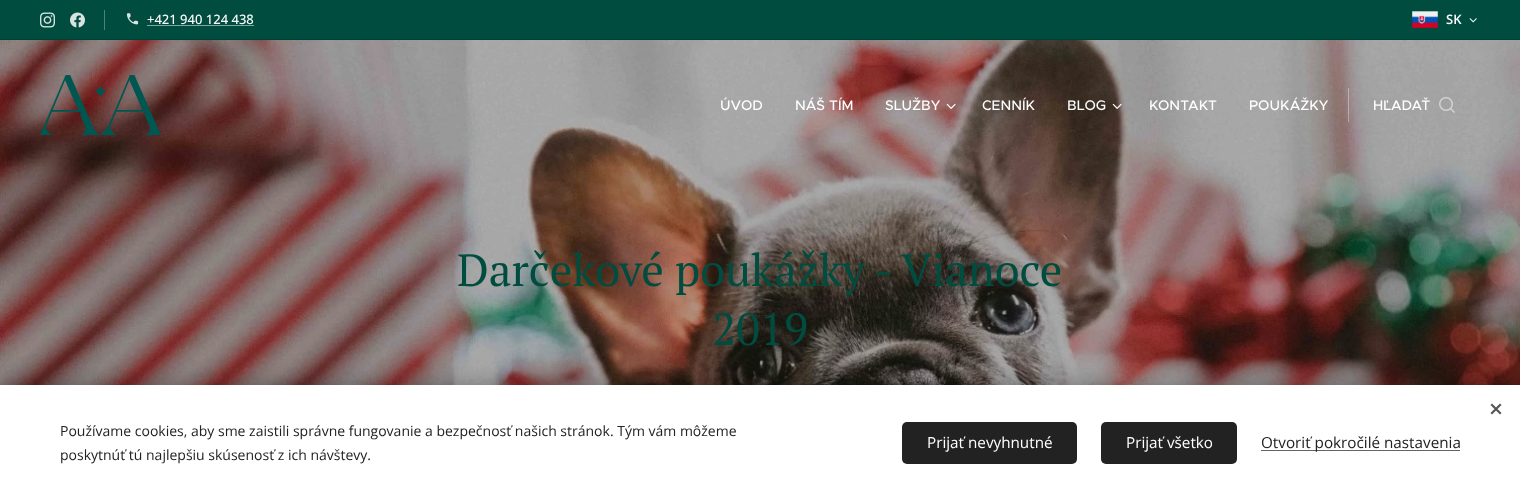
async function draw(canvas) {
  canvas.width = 1520;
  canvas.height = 501;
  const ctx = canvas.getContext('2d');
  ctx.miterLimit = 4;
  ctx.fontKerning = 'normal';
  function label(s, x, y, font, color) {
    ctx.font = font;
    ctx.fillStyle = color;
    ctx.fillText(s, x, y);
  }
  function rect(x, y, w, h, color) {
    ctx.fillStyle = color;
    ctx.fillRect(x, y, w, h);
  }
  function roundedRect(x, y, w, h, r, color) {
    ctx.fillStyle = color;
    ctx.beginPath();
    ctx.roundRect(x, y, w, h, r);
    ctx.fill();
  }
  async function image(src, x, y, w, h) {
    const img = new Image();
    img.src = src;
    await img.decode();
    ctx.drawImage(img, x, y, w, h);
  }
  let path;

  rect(0, 0, 1520, 501, '#fff');
  rect(0, 0, 1520, 39, '#004d40');
  await image('assets/img1.png', 40, 12, 15, 16);
  await image('assets/img2.png', 70, 12, 15, 16);
  rect(104, 10, 1, 20, '#4d8279');
  await image('assets/img3.png', 126, 13, 13, 12);
  label('+421 940 124 438', 147, 24, '500 13px Open Sans', '#fff');
  rect(147, 25, 107, 1, '#80a6a0');
  await image('assets/img4.png', 1412, 11, 26, 17);
  label('SK', 1446, 24, '600 13px Open Sans', '#fff');
  await image('assets/img5.png', 1469, 18, 8, 5);
  rect(0, 39, 1520, 1, '#004136');
  await image('assets/img10.png', 0, 40, 1520, 345);
  await image('assets/img6.png', 40, 75, 121, 60);
  label('ÚVOD', 720, 110, '500 14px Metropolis', '#fff');
  label('NÁŠ TÍM', 795, 110, '500 14px Metropolis', '#fff');
  label('SLUŽBY', 885, 110, '500 14px Metropolis', '#fff');
  await image('assets/img7.png', 946, 103, 10, 6);
  label('CENNÍK', 982, 110, '500 14px Metropolis', '#fff');
  label('BLOG', 1067, 110, '500 14px Metropolis', '#fff');
  await image('assets/img8.png', 1112, 103, 10, 6);
  label('KONTAKT', 1149, 110, '500 14px Metropolis', '#fff');
  label('POUKÁŽKY', 1249, 110, '500 14px Metropolis', '#fff');
  rect(1348, 88, 1, 34, '#ffffff59');
  label('HĽADAŤ', 1373, 110, '500 14px Metropolis', '#fff');
  await image('assets/img9.png', 1439, 97, 16, 16);
  label('Darčekové poukážky - Vianoce', 457, 286, '45px PT Serif', '#004d40');
  label('2019', 712, 345, '45px PT Serif', '#004d40');
  ctx.fillStyle = '#00000054';
  ctx.filter = 'blur(12.5px)';
  ctx.beginPath();
  ctx.rect(0, 385, 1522, 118);
  ctx.fill();
  ctx.filter = 'none';
  rect(0, 385, 1520, 116, '#fff');
  ctx.fillStyle = '#555';
  path = new Path2D('M1490.5 413L1500 403.5L1501.5 405L1492 414.5Z');
  ctx.fill(path);
  path = new Path2D('M1492 403.5L1501.5 413L1500 414.5L1490.5 405Z');
  ctx.fill(path);
  label('Používame cookies, aby sme zaistili správne fungovanie a bezpečnosť našich stránok. Tým vám môžeme', 60, 436, '14px Open Sans', '#222');
  label('poskytnúť tú najlepšiu skúsenosť z ich návštevy.', 60, 460, '14px Open Sans', '#222');
  roundedRect(902, 422, 175, 42, 5, '#222');
  label('Prijať nevyhnutné', 927, 448, '15.25px Open Sans', '#fff');
  roundedRect(1101, 422, 136, 42, 5, '#222');
  label('Prijať všetko', 1126, 448, '15.25px Open Sans', '#fff');
  rect(1261, 450, 199, 1, '#646464');
  label('Otvoriť pokročilé nastavenia', 1261, 448, '15.25px Open Sans', '#222');
}

draw(document.querySelector('canvas'));
